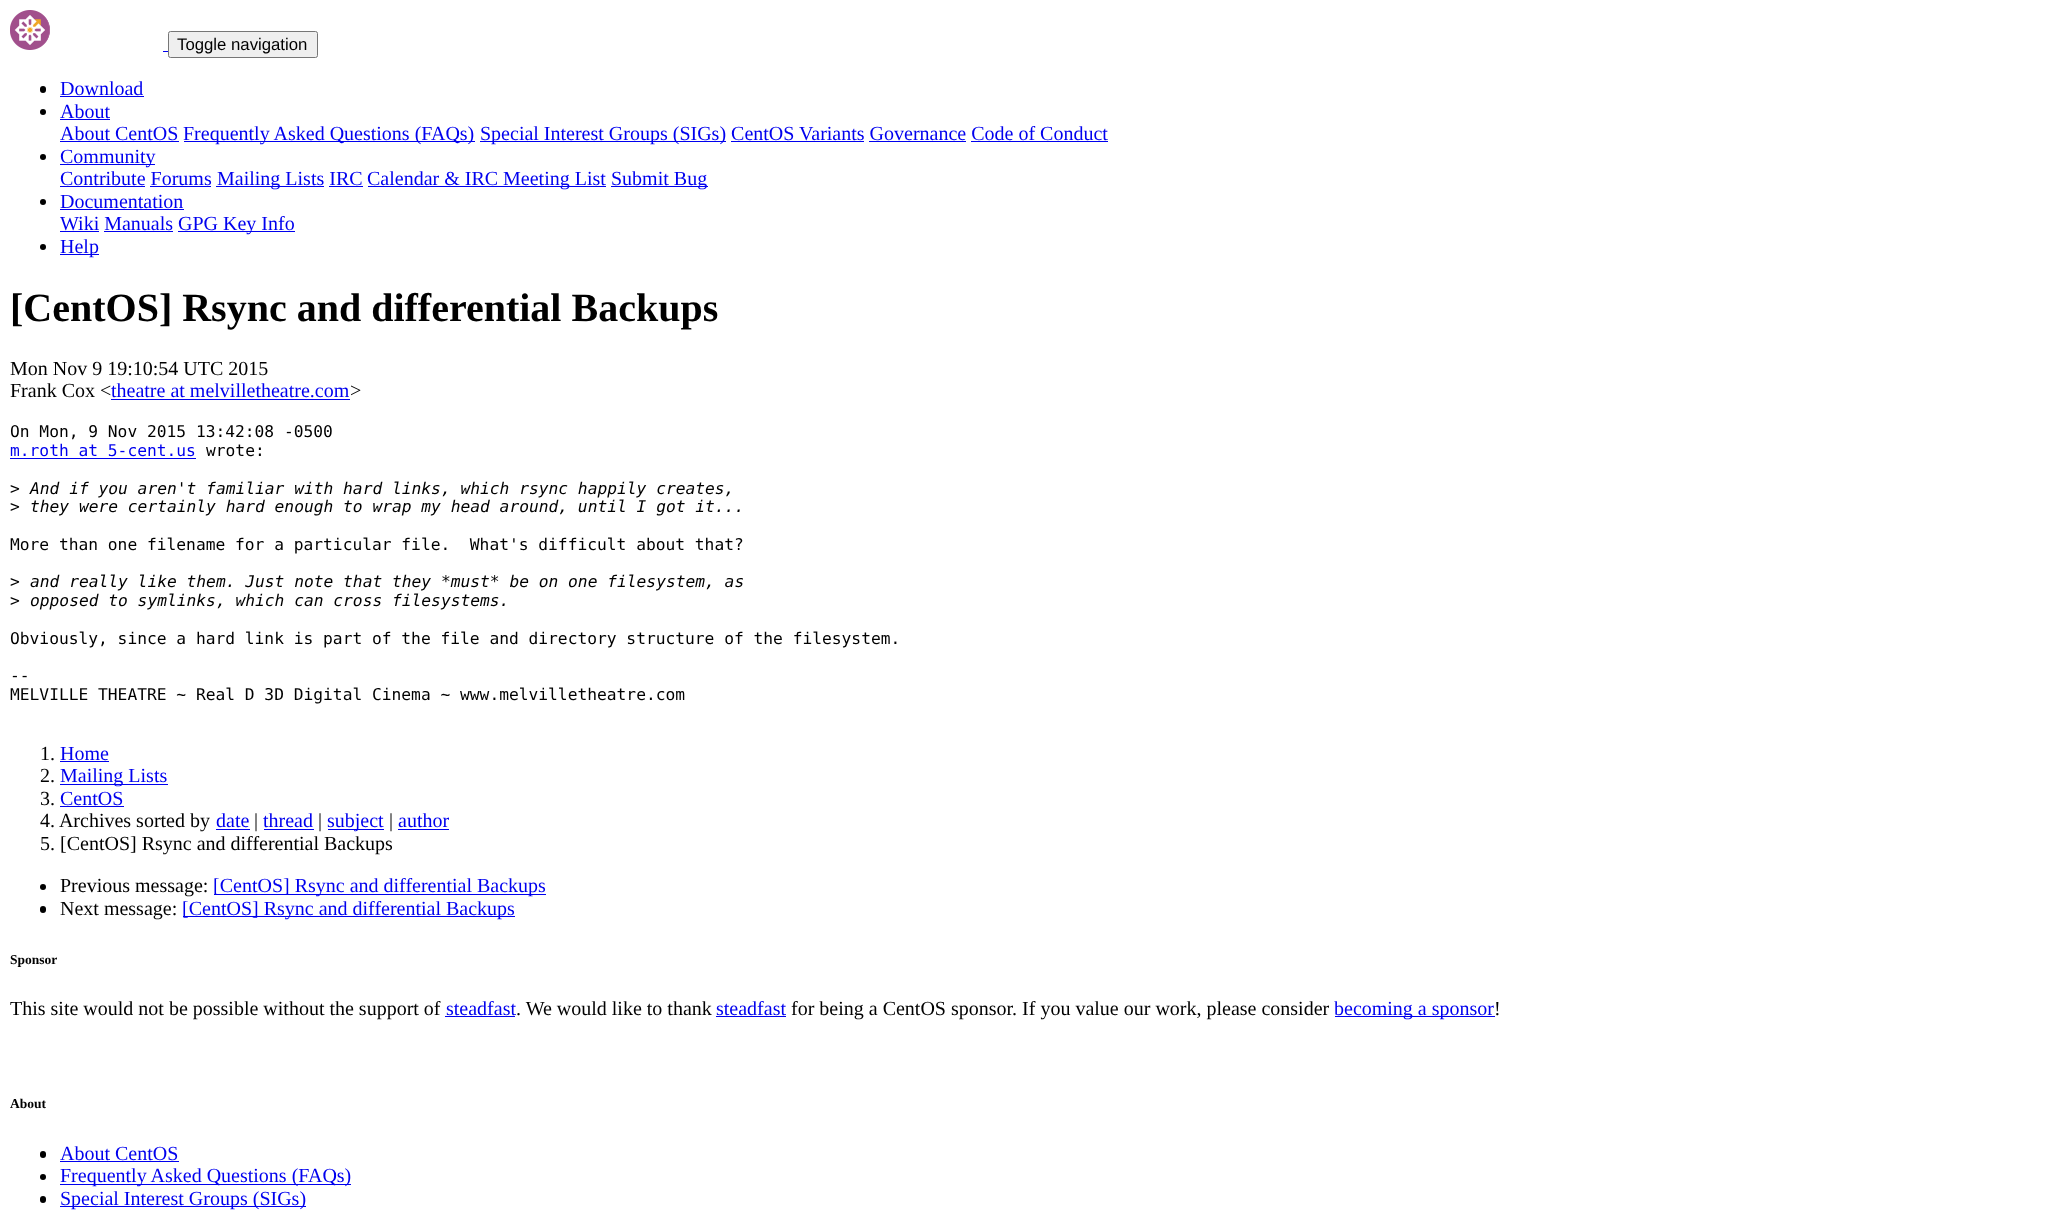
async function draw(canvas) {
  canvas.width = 2070;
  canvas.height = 1217;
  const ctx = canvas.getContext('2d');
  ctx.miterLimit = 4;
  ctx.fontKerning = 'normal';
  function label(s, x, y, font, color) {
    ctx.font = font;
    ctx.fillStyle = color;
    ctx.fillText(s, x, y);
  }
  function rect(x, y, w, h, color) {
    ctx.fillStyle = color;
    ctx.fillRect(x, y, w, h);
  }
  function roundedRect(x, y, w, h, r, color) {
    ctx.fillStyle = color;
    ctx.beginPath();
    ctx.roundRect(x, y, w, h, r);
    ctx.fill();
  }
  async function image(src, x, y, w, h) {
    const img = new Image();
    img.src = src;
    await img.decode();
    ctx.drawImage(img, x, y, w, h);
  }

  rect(0, 0, 2070, 1217, '#fff');
  await image('assets/img1.png', 10, 10, 40, 40);
  rect(163, 51, 5, 1, '#00e');
  ctx.fillStyle = '#efefef';
  ctx.beginPath();
  ctx.roundRect(168.5, 31.5, 149, 26, 2);
  ctx.fill();
  ctx.strokeStyle = '#767676';
  ctx.stroke();
  label('Toggle navigation', 177, 50, '16.75px Liberation Sans', '#000');
  roundedRect(40, 86, 6, 7, 3, '#000');
  label('Download', 60, 95, '20px Liberation Serif', '#00e');
  rect(60, 96, 84, 1, '#00e');
  ctx.fillStyle = '#000';
  ctx.beginPath();
  ctx.arc(43, 112, 3, 0, 2 * Math.PI);
  ctx.fill();
  label('About', 60, 118, '20px Liberation Serif', '#00e');
  rect(60, 119, 50, 1, '#00e');
  label('About CentOS', 60, 140, '20px Liberation Serif', '#00e');
  rect(60, 141, 119, 1, '#00e');
  rect(184, 141, 291, 1, '#00e');
  label('Frequently Asked Questions (FAQs)', 183, 140, '20px Liberation Serif', '#00e');
  rect(480, 141, 246, 1, '#00e');
  label('Special Interest Groups (SIGs) CentOS Variants Governance Code of Conduct', 480, 140, '20px Liberation Serif', '#00e');
  rect(731, 141, 133, 1, '#00e');
  rect(869, 141, 97, 1, '#00e');
  rect(971, 141, 137, 1, '#00e');
  ctx.fillStyle = '#000';
  ctx.beginPath();
  ctx.arc(43, 157, 3, 0, 2 * Math.PI);
  ctx.fill();
  rect(60, 164, 95, 1, '#00e');
  label('Community', 60, 163, '20px Liberation Serif', '#00e');
  label('Contribute Forums', 60, 185, '20px Liberation Serif', '#00e');
  rect(60, 186, 85, 1, '#00e');
  rect(216, 186, 108, 1, '#00e');
  label('Mailing Lists IRC', 217, 185, '20px Liberation Serif', '#00e');
  rect(368, 186, 238, 1, '#00e');
  label('Calendar & IRC Meeting List', 367, 185, '20px Liberation Serif', '#00e');
  rect(611, 186, 97, 1, '#00e');
  label('Submit Bug', 611, 185, '20px Liberation Serif', '#00e');
  rect(150, 186, 61, 1, '#00e');
  rect(329, 186, 34, 1, '#00e');
  ctx.fillStyle = '#000';
  ctx.beginPath();
  ctx.arc(43, 202, 3, 0, 2 * Math.PI);
  ctx.fill();
  label('Documentation', 60, 208, '20px Liberation Serif', '#00e');
  rect(60, 209, 124, 1, '#00e');
  label('Wiki Manuals', 60, 230, '20px Liberation Serif', '#00e');
  rect(60, 231, 39, 1, '#00e');
  rect(178, 231, 117, 1, '#00e');
  label('GPG Key Info', 178, 230, '20px Liberation Serif', '#00e');
  rect(104, 231, 69, 1, '#00e');
  ctx.fillStyle = '#000';
  ctx.beginPath();
  ctx.arc(43, 247, 3, 0, 2 * Math.PI);
  ctx.fill();
  rect(60, 254, 39, 1, '#00e');
  label('Help', 60, 253, '20px Liberation Serif', '#00e');
  label('[CentOS] Rsync and differential Backups', 10, 321, 'bold 40px Liberation Serif', '#000');
  label('Mon Nov 9 19:10:54 UTC 2015', 10, 375, '20px Liberation Serif', '#000');
  label('Frank Cox <', 10, 397, '20px Liberation Serif', '#000');
  label('theatre at melvilletheatre.com', 111, 397, '20px Liberation Serif', '#00e');
  rect(111, 399, 239, 1, '#00e');
  label('>', 350, 397, '20px Liberation Serif', '#000');
  label('On Mon, 9 Nov 2015 13:42:08 -0500', 10, 437, '16.25px DejaVu Sans Mono', '#000');
  label('m.roth at 5-cent.us', 10, 456, '16.25px DejaVu Sans Mono', '#00e');
  rect(10, 458, 186, 1, '#00e');
  label('wrote:', 206, 456, '16.25px DejaVu Sans Mono', '#000');
  label('>', 10, 494, '16.25px DejaVu Sans Mono', '#000');
  label('And if you aren\'t familiar with hard links, which rsync happily creates,', 30, 494, 'italic 16.25px DejaVu Sans Mono', '#000');
  label('>', 10, 512, '16.25px DejaVu Sans Mono', '#000');
  label('they were certainly hard enough to wrap my head around, until I got it...', 30, 512, 'italic 16.25px DejaVu Sans Mono', '#000');
  label('More than one filename for a particular file.  What\'s difficult about that?', 10, 550, '16.25px DejaVu Sans Mono', '#000');
  label('>', 10, 587, '16.25px DejaVu Sans Mono', '#000');
  label('and really like them. Just note that they *must* be on one filesystem, as', 30, 587, 'italic 16.25px DejaVu Sans Mono', '#000');
  label('>', 10, 606, '16.25px DejaVu Sans Mono', '#000');
  label('opposed to symlinks, which can cross filesystems.', 30, 606, 'italic 16.25px DejaVu Sans Mono', '#000');
  label('Obviously, since a hard link is part of the file and directory structure of the filesystem.', 10, 644, '16.25px DejaVu Sans Mono', '#000');
  label('--', 10, 681, '16.25px DejaVu Sans Mono', '#000');
  label('MELVILLE THEATRE ~ Real D 3D Digital Cinema ~ www.melvilletheatre.com', 10, 700, '16.25px DejaVu Sans Mono', '#000');
  label('1.', 40, 760, '20px Liberation Serif', '#000');
  label('Home', 60, 760, '20px Liberation Serif', '#00e');
  rect(60, 761, 49, 1, '#00e');
  label('2.', 40, 782, '20px Liberation Serif', '#000');
  rect(60, 784, 108, 1, '#00e');
  label('Mailing Lists', 60, 782, '20px Liberation Serif', '#00e');
  label('3.', 40, 805, '20px Liberation Serif', '#000');
  label('CentOS', 60, 805, '20px Liberation Serif', '#00e');
  rect(60, 806, 64, 1, '#00e');
  label('4. Archives sorted by', 40, 827, '20px Liberation Serif', '#000');
  label('date', 216, 827, '20px Liberation Serif', '#00e');
  rect(216, 829, 34, 1, '#00e');
  label('|', 254, 827, '20px Liberation Serif', '#000');
  label('thread', 263, 827, '20px Liberation Serif', '#00e');
  rect(264, 829, 50, 1, '#00e');
  label('|', 318, 827, '20px Liberation Serif', '#000');
  rect(328, 829, 56, 1, '#00e');
  label('subject', 327, 827, '20px Liberation Serif', '#00e');
  label('|', 389, 827, '20px Liberation Serif', '#000');
  label('author', 398, 827, '20px Liberation Serif', '#00e');
  rect(398, 829, 51, 1, '#00e');
  label('5. [CentOS] Rsync and differential Backups', 40, 850, '20px Liberation Serif', '#000');
  ctx.beginPath();
  ctx.arc(43, 887, 3, 0, 2 * Math.PI);
  ctx.fill();
  label('Previous message:', 60, 892, '20px Liberation Serif', '#000');
  rect(214, 894, 332, 1, '#00e');
  label('[CentOS] Rsync and differential Backups', 213, 892, '20px Liberation Serif', '#00e');
  roundedRect(40, 906, 6, 7, 3, '#000');
  label('Next message:', 60, 915, '20px Liberation Serif', '#000');
  rect(183, 916, 332, 1, '#00e');
  label('[CentOS] Rsync and differential Backups', 182, 915, '20px Liberation Serif', '#00e');
  label('Sponsor', 10, 964, 'bold 13.5px Liberation Serif', '#000');
  label('This site would not be possible without the support of', 10, 1015, '20px Liberation Serif', '#000');
  label('steadfast', 446, 1015, '20px Liberation Serif', '#00e');
  rect(445, 1016, 70, 1, '#00e');
  label('. We would like to thank', 516, 1015, '20px Liberation Serif', '#000');
  label('steadfast', 716, 1015, '20px Liberation Serif', '#00e');
  rect(716, 1016, 70, 1, '#00e');
  label('for being a CentOS sponsor. If you value our work, please consider', 791, 1015, '20px Liberation Serif', '#000');
  rect(1335, 1016, 160, 1, '#00e');
  label('becoming a sponsor', 1334, 1015, '20px Liberation Serif', '#00e');
  label('!', 1494, 1015, '20px Liberation Serif', '#000');
  label('About', 10, 1108, 'bold 13.5px Liberation Serif', '#000');
  roundedRect(40, 1151, 6, 7, 3, '#000');
  label('About CentOS', 60, 1160, '20px Liberation Serif', '#00e');
  rect(60, 1161, 119, 1, '#00e');
  ctx.fillStyle = '#000';
  ctx.beginPath();
  ctx.arc(43, 1177, 3, 0, 2 * Math.PI);
  ctx.fill();
  rect(60, 1184, 291, 1, '#00e');
  label('Frequently Asked Questions (FAQs)', 60, 1182, '20px Liberation Serif', '#00e');
  roundedRect(40, 1196, 6, 7, 3, '#000');
  rect(60, 1206, 246, 1, '#00e');
  label('Special Interest Groups (SIGs)', 60, 1205, '20px Liberation Serif', '#00e');
}

draw(document.querySelector('canvas'));
